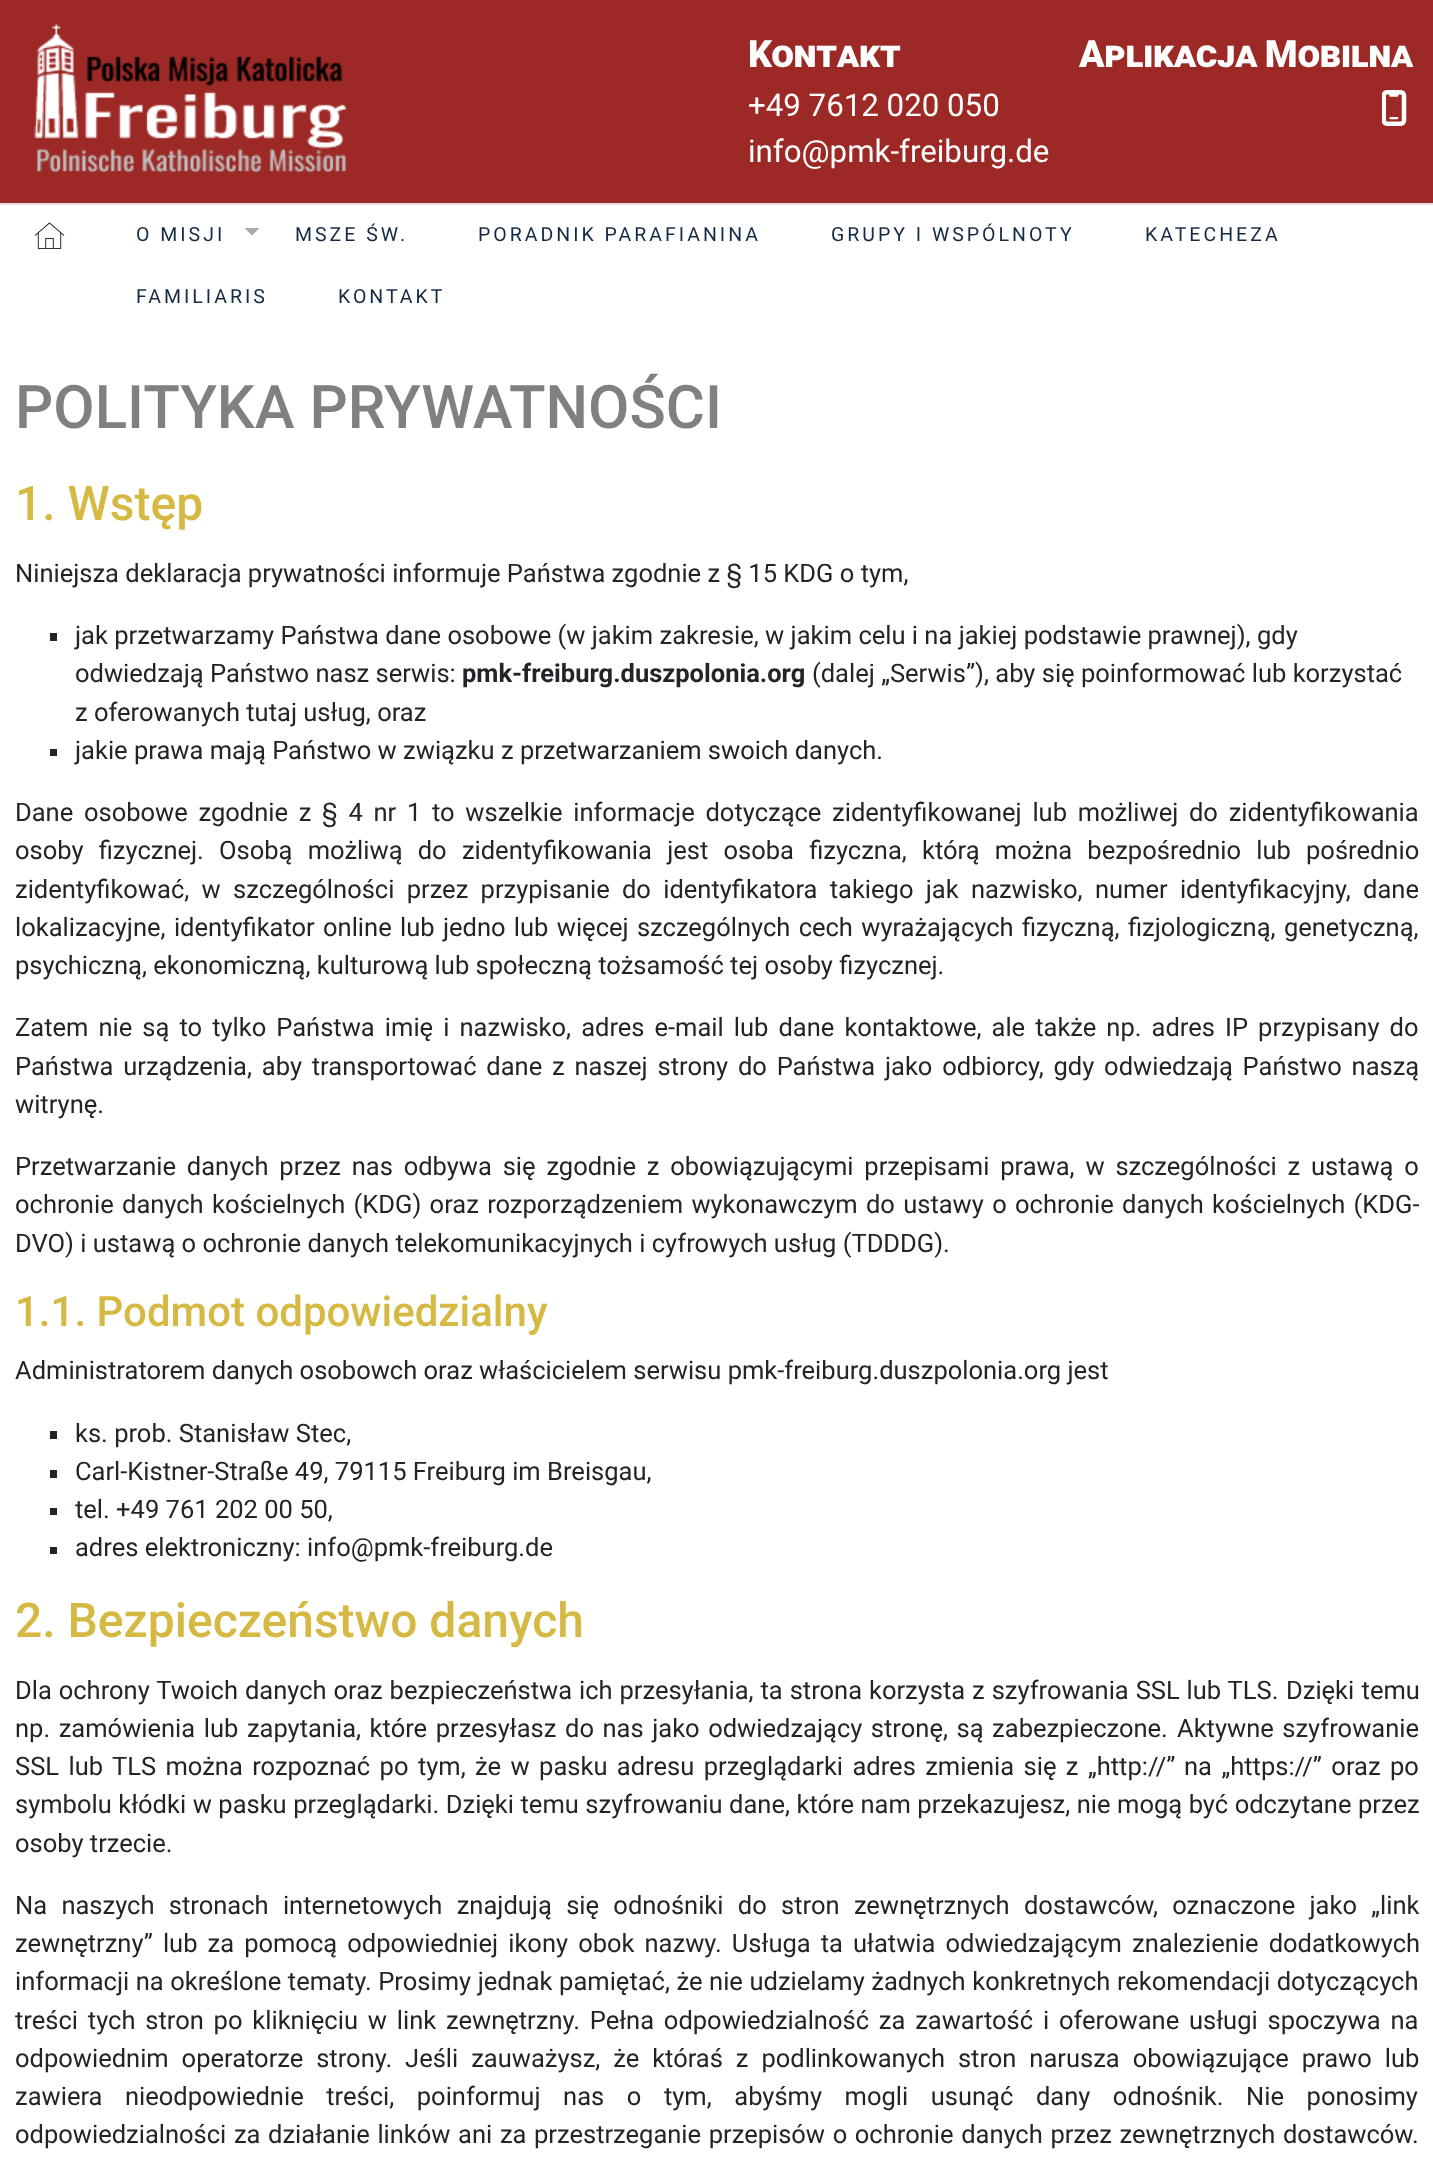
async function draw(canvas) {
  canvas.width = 1433;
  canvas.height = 2168;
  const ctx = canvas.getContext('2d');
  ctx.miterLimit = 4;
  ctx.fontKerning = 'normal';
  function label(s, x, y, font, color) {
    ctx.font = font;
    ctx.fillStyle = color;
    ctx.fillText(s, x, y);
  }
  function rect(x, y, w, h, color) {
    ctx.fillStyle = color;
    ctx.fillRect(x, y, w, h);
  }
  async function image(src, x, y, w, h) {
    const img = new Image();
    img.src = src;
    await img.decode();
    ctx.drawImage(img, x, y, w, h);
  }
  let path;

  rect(0, 0, 1433, 2168, '#fff');
  rect(0, 0, 1433, 203, '#9c2926');
  await image('assets/img1.png', 34, 23, 313, 150);
  label('Kontakt', 748, 67, '900 37.5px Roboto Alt', '#fff');
  label('+49 7612 020 050', 748, 116, '31.25px Roboto', '#fff');
  label('info@pmk-freiburg.de', 748, 162, '31.25px Roboto', '#fff');
  ctx.wordSpacing = '-2px';
  label('Aplikacja Mobilna', 1079, 67, '900 37.5px Roboto Alt', '#fff');
  await image('assets/img2.png', 1382, 90, 25, 36);
  rect(0, 203, 1433, 2, '#e1e1e1');
  await image('assets/img3.png', 35, 222, 30, 27);
  ctx.letterSpacing = '3px';
  ctx.wordSpacing = '0px';
  label('O MISJI', 136, 241, '19.5px Roboto', '#132a44');
  ctx.fillStyle = '#aaa';
  path = new Path2D('M244.5 228H259.5L252 235.5Z');
  ctx.fill(path);
  label('MSZE ŚW.', 295, 241, '19.5px Roboto', '#132a44');
  label('PORADNIK PARAFIANINA', 478, 241, '19.5px Roboto', '#132a44');
  label('GRUPY I WSPÓLNOTY', 831, 241, '19.5px Roboto', '#132a44');
  label('KATECHEZA', 1145, 241, '19.5px Roboto', '#132a44');
  label('FAMILIARIS', 136, 303, '19.5px Roboto', '#132a44');
  label('KONTAKT', 338, 303, '19.5px Roboto', '#132a44');
  ctx.letterSpacing = '0px';
  label('POLITYKA PRYWATNOŚCI', 15, 428, '500 60px Roboto', '#808080');
  label('1. Wstęp', 15, 520, '500 48px Roboto', '#d5b943');
  label('Niniejsza deklaracja prywatności informuje Państwa zgodnie z § 15 KDG o tym,', 15, 582, '25.5px Roboto', '#212529');
  rect(50, 633, 7, 8, '#212529');
  label('jak przetwarzamy Państwa dane osobowe (w jakim zakresie, w jakim celu i na jakiej podstawie prawnej), gdy', 75, 644, '25.5px Roboto', '#212529');
  label('odwiedzają Państwo nasz serwis:', 75, 682, '25.5px Roboto', '#212529');
  label('pmk-freiburg.duszpolonia.org', 462, 682, 'bold 25.5px Roboto', '#212529');
  label('(dalej „Serwis”), aby się poinformować lub korzystać', 812, 682, '25.5px Roboto', '#212529');
  label('z oferowanych tutaj usług, oraz', 75, 721, '25.5px Roboto', '#212529');
  rect(50, 749, 7, 7, '#212529');
  label('jakie prawa mają Państwo w związku z przetwarzaniem swoich danych.', 75, 759, '25.5px Roboto', '#212529');
  ctx.wordSpacing = '4.4px';
  label('Dane osobowe zgodnie z § 4 nr 1 to wszelkie informacje dotyczące zidentyfikowanej lub możliwej do zidentyfikowania', 15, 821, '25.5px Roboto', '#212529');
  ctx.wordSpacing = '8.9px';
  label('osoby fizycznej. Osobą możliwą do zidentyfikowania jest osoba fizyczna, którą można bezpośrednio lub pośrednio', 15, 859, '25.5px Roboto', '#212529');
  ctx.wordSpacing = '6px';
  label('zidentyfikować, w szczególności przez przypisanie do identyfikatora takiego jak nazwisko, numer identyfikacyjny, dane', 15, 898, '25.5px Roboto', '#212529');
  ctx.wordSpacing = '2px';
  label('lokalizacyjne, identyfikator online lub jedno lub więcej szczególnych cech wyrażających fizyczną, fizjologiczną, genetyczną,', 15, 936, '25.5px Roboto', '#212529');
  ctx.wordSpacing = '0px';
  label('psychiczną, ekonomiczną, kulturową lub społeczną tożsamość tej osoby fizycznej.', 15, 974, '25.5px Roboto', '#212529');
  ctx.wordSpacing = '3.75px';
  label('Zatem nie są to tylko Państwa imię i nazwisko, adres e-mail lub dane kontaktowe, ale także np. adres IP przypisany do', 15, 1036, '25.5px Roboto', '#212529');
  ctx.wordSpacing = '3.5px';
  label('Państwa urządzenia, aby transportować dane z naszej strony do Państwa jako odbiorcy, gdy odwiedzają Państwo naszą', 15, 1075, '25.5px Roboto', '#212529');
  ctx.wordSpacing = '0px';
  label('witrynę.', 15, 1113, '25.5px Roboto', '#212529');
  ctx.wordSpacing = '4.5px';
  label('Przetwarzanie danych przez nas odbywa się zgodnie z obowiązującymi przepisami prawa, w szczególności z ustawą o', 15, 1175, '25.5px Roboto', '#212529');
  ctx.wordSpacing = '2px';
  label('ochronie danych kościelnych (KDG) oraz rozporządzeniem wykonawczym do ustawy o ochronie danych kościelnych (KDG-', 15, 1213, '25.5px Roboto', '#212529');
  ctx.wordSpacing = '0px';
  label('DVO) i ustawą o ochronie danych telekomunikacyjnych i cyfrowych usług (TDDDG).', 15, 1252, '25.5px Roboto', '#212529');
  label('1.1. Podmot odpowiedzialny', 15, 1326, '500 42px Roboto', '#d5b943');
  label('Administratorem danych osobowch oraz właścicielem serwisu pmk-freiburg.duszpolonia.org jest', 15, 1379, '25.5px Roboto', '#212529');
  rect(50, 1431, 7, 8, '#212529');
  label('ks. prob. Stanisław Stec,', 75, 1442, '25.5px Roboto', '#212529');
  rect(50, 1470, 7, 8, '#212529');
  label('Carl-Kistner-Straße 49, 79115 Freiburg im Breisgau,', 75, 1480, '25.5px Roboto', '#212529');
  rect(50, 1508, 7, 7, '#212529');
  label('tel. +49 761 202 00 50,', 75, 1518, '25.5px Roboto', '#212529');
  rect(50, 1547, 7, 7, '#212529');
  label('adres elektroniczny: info@pmk-freiburg.de', 75, 1556, '25.5px Roboto', '#212529');
  label('2. Bezpieczeństwo danych', 15, 1637, '500 48px Roboto', '#d5b943');
  ctx.wordSpacing = '0.6px';
  label('Dla ochrony Twoich danych oraz bezpieczeństwa ich przesyłania, ta strona korzysta z szyfrowania SSL lub TLS.', 15, 1699, '25.5px Roboto', '#212529');
  ctx.wordSpacing = '1px';
  label('Dzięki temu', 1286, 1699, '25.5px Roboto', '#212529');
  ctx.wordSpacing = '2.25px';
  label('np. zamówienia lub zapytania, które przesyłasz do nas jako odwiedzający stronę, są zabezpieczone.', 15, 1737, '25.5px Roboto', '#212529');
  label('Aktywne szyfrowanie', 1177, 1737, '25.5px Roboto', '#212529');
  ctx.wordSpacing = '3.1px';
  label('SSL lub TLS można rozpoznać po tym, że w pasku adresu przeglądarki adres zmienia się z „http://”', 15, 1775, '25.5px Roboto', '#212529');
  label('na „https://” oraz po', 1184, 1775, '25.5px Roboto', '#212529');
  ctx.wordSpacing = '0.2px';
  label('symbolu kłódki w pasku przeglądarki. Dzięki temu szyfrowaniu dane, które nam przekazujesz, nie mogą być odczytane przez', 15, 1813, '25.5px Roboto', '#212529');
  ctx.wordSpacing = '0px';
  label('osoby trzecie.', 15, 1852, '25.5px Roboto', '#212529');
  ctx.wordSpacing = '8px';
  label('Na naszych stronach internetowych znajdują się odnośniki do stron zewnętrznych dostawców, oznaczone jako „link', 15, 1914, '25.5px Roboto', '#212529');
  ctx.wordSpacing = '3.75px';
  label('zewnętrzny” lub za pomocą odpowiedniej ikony obok nazwy. Usługa ta ułatwia odwiedzającym znalezienie dodatkowych', 15, 1952, '25.5px Roboto', '#212529');
  ctx.wordSpacing = '0.25px';
  label('informacji na określone tematy. Prosimy jednak pamiętać, że nie udzielamy żadnych konkretnych rekomendacji dotyczących', 15, 1990, '25.5px Roboto', '#212529');
  ctx.wordSpacing = '3.5px';
  label('treści tych stron po kliknięciu w link zewnętrzny. Pełna odpowiedzialność za zawartość i oferowane usługi spoczywa na', 15, 2029, '25.5px Roboto', '#212529');
  ctx.wordSpacing = '6.6px';
  label('odpowiednim operatorze strony. Jeśli zauważysz, że któraś z podlinkowanych stron narusza obowiązujące prawo lub', 15, 2067, '25.5px Roboto', '#212529');
  ctx.wordSpacing = '16.25px';
  label('zawiera nieodpowiednie treści, poinformuj nas o tym, abyśmy mogli usunąć dany odnośnik. Nie ponosimy', 15, 2105, '25.5px Roboto', '#212529');
  ctx.wordSpacing = '1.3px';
  label('odpowiedzialności za działanie linków ani za przestrzeganie przepisów o ochronie danych przez zewnętrznych dostawców.', 15, 2143, '25.5px Roboto', '#212529');
}

draw(document.querySelector('canvas'));
